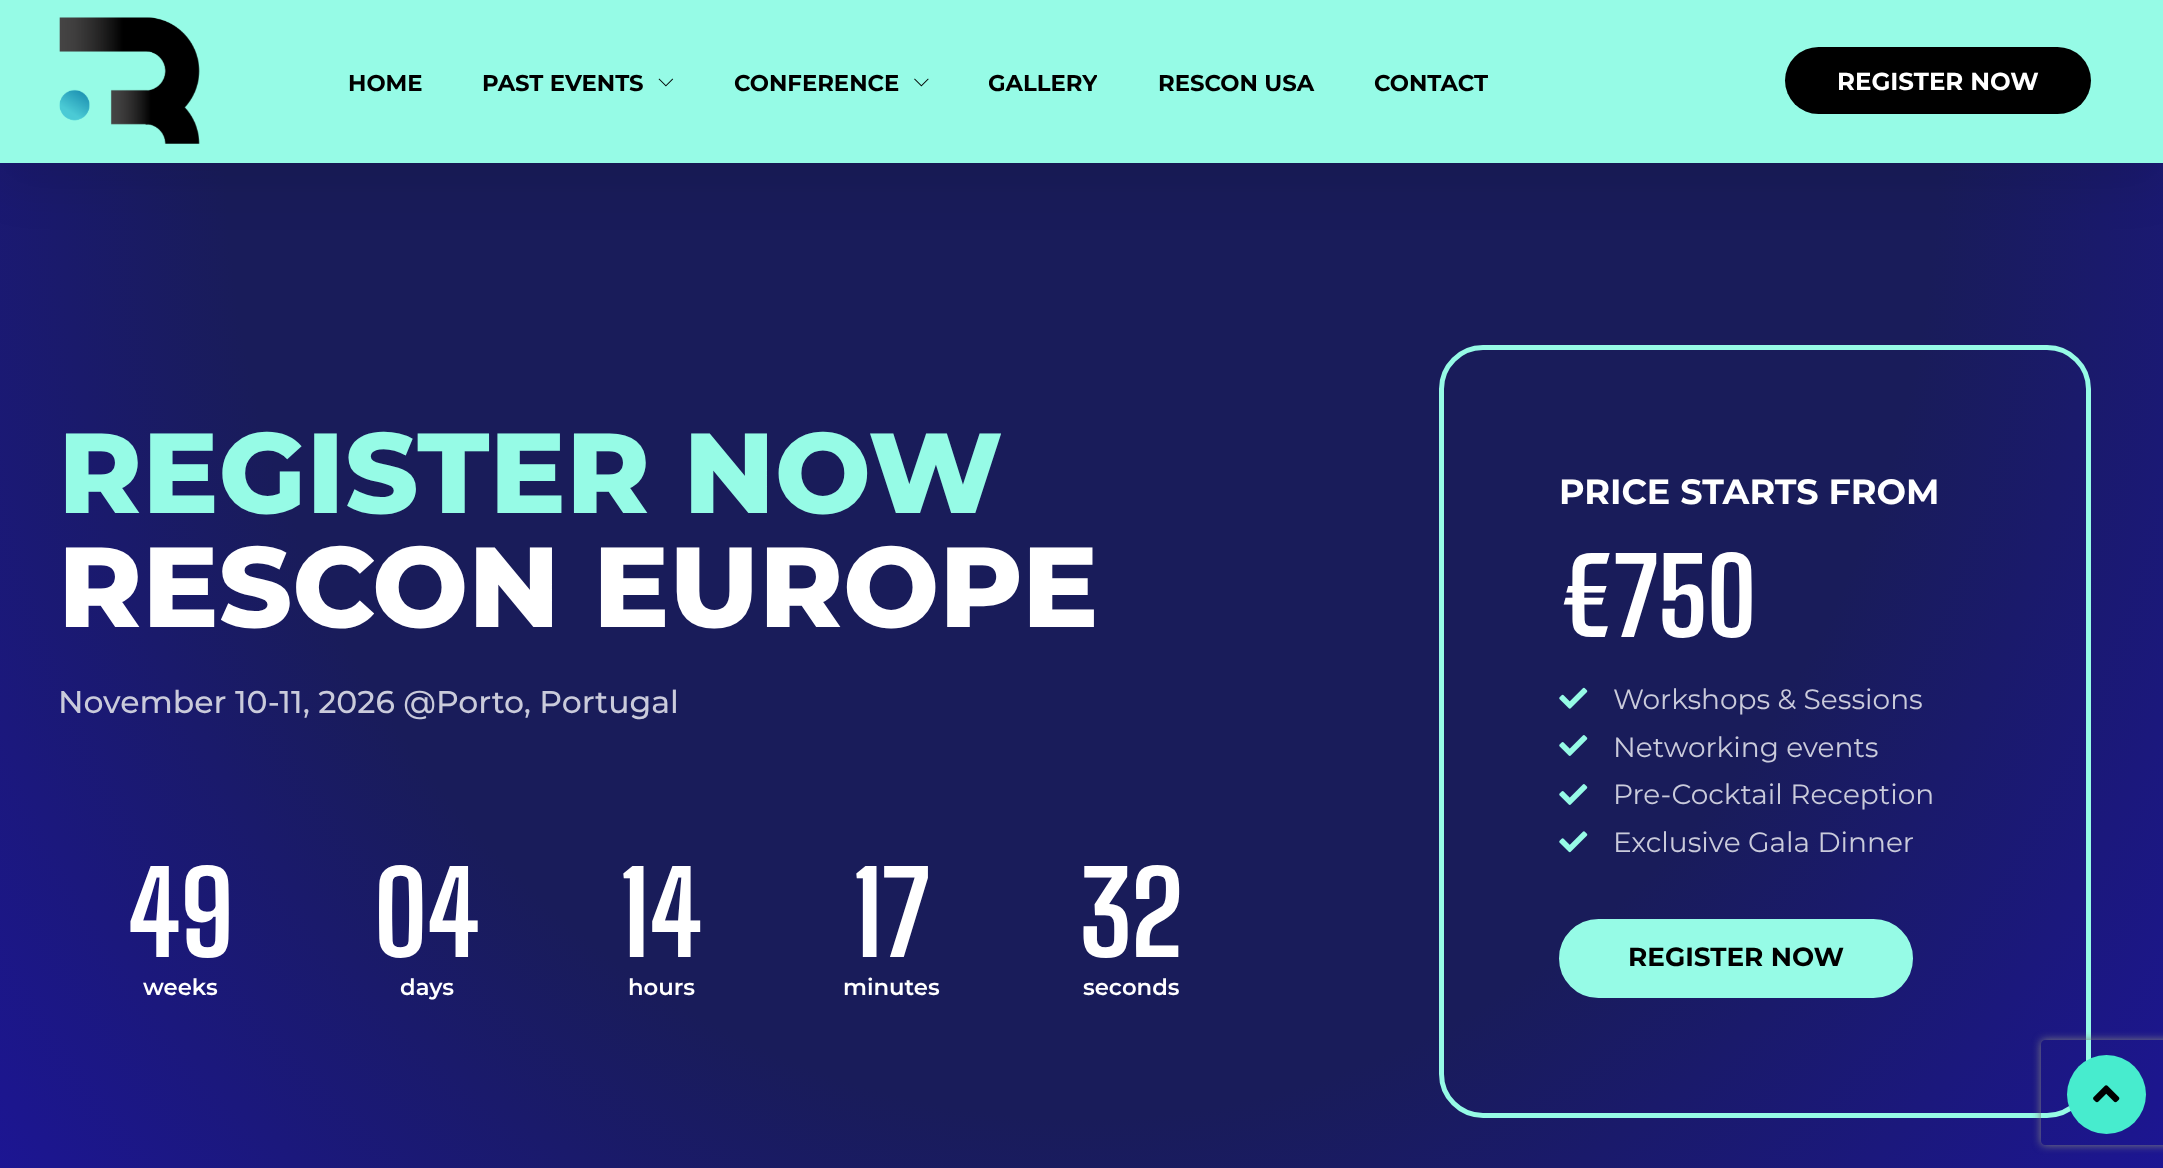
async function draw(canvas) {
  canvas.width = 2163;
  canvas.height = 1168;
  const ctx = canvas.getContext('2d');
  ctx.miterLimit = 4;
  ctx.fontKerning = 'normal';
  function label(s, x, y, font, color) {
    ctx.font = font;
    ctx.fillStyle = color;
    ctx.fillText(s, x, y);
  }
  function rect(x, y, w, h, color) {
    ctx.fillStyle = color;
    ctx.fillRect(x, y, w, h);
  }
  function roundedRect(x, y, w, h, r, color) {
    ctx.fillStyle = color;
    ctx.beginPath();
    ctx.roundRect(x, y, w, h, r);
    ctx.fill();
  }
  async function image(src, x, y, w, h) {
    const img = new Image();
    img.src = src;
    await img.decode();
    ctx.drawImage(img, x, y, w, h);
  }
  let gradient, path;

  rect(0, 0, 2163, 1168, '#fff');
  gradient = ctx.createRadialGradient(1082, 117.62, 0, 1082, 117.62, 1529);
  gradient.addColorStop(0.56, '#191c5a');
  gradient.addColorStop(1, '#1d149f');
  ctx.fillStyle = gradient;
  ctx.beginPath();
  ctx.rect(0, 163, 2163, 1005);
  ctx.save();
  ctx.clip();
  ctx.scale(1, 1755 / 1529);
  ctx.fillRect(0, 0, 2163, 1018);
  ctx.restore();
  ctx.fillStyle = '#0000001a';
  ctx.filter = 'blur(26px)';
  ctx.beginPath();
  ctx.rect(0, 18, 2163, 162);
  ctx.fill();
  ctx.filter = 'none';
  rect(0, 0, 2163, 163, '#96fbe6');
  await image('assets/img1.png', 59, 17, 141, 127);
  label('HOME', 348, 91, 'bold 22.75px Montserrat', '#000');
  label('PAST EVENTS', 482, 91, 'bold 22.75px Montserrat', '#000');
  await image('assets/img2.png', 658, 78, 16, 9);
  label('CONFERENCE', 734, 91, 'bold 22.75px Montserrat', '#000');
  await image('assets/img3.png', 914, 78, 15, 9);
  ctx.save();
  ctx.beginPath();
  ctx.rect(989, 58, 108, 47);
  ctx.clip();
  label('GALLERY', 988, 91, 'bold 22.75px Montserrat', '#000');
  ctx.restore();
  label('RESCON USA', 1158, 91, 'bold 22.75px Montserrat', '#000');
  label('CONTACT', 1374, 91, 'bold 22.75px Montserrat', '#000');
  roundedRect(1785, 47, 306, 67, 33.5, '#000');
  label('REGISTER NOW', 1837, 90, 'bold 24.5px Montserrat', '#fff');
  label('REGISTER NOW', 58, 513, '800 113.75px Montserrat', '#96fbe6');
  label('RESCON EUROPE', 58, 627, '800 113.75px Montserrat', '#fff');
  label('November 10-11, 2026 @Porto, Portugal', 58, 713, '500 31.5px Montserrat', '#cacbdb');
  label('49', 128, 957, 'bold 113.75px Big Shoulders Text', '#fff');
  label('weeks', 143, 995, '600 22.75px Montserrat', '#fff');
  label('04', 374, 957, 'bold 113.75px Big Shoulders Text', '#fff');
  label('days', 400, 995, '600 22.75px Montserrat', '#fff');
  label('14', 620, 957, 'bold 113.75px Big Shoulders Text', '#fff');
  label('hours', 628, 995, '600 22.75px Montserrat', '#fff');
  label('17', 853, 957, 'bold 113.75px Big Shoulders Text', '#fff');
  label('minutes', 843, 995, '600 22.75px Montserrat', '#fff');
  label('32', 1080, 957, 'bold 113.75px Big Shoulders Text', '#fff');
  label('seconds', 1083, 995, '600 22.75px Montserrat', '#fff');
  ctx.beginPath();
  ctx.roundRect(1441.5, 347.5, 647, 768, 41.5);
  ctx.strokeStyle = '#96fbe6';
  ctx.lineWidth = 5;
  ctx.stroke();
  label('PRICE STARTS FROM', 1559, 504, 'bold 35px Montserrat', '#fff');
  label('€750', 1559, 637, 'bold 105px Big Shoulders Text', '#fff');
  await image('assets/img4.png', 1559, 687, 29, 22);
  label('Workshops & Sessions', 1613, 709, '28px Montserrat', '#cacbdb');
  await image('assets/img5.png', 1559, 735, 29, 21);
  label('Networking events', 1613, 757, '28px Montserrat', '#cacbdb');
  await image('assets/img5.png', 1559, 784, 29, 21);
  label('Pre-Cocktail Reception', 1613, 804, '28px Montserrat', '#cacbdb');
  await image('assets/img6.png', 1559, 831, 29, 22);
  label('Exclusive Gala Dinner', 1613, 852, '28px Montserrat', '#cacbdb');
  ctx.fillStyle = '#96fbe6';
  ctx.beginPath();
  ctx.roundRect(1561, 921, 350, 75, 37.5);
  ctx.fill();
  ctx.lineWidth = 4;
  ctx.stroke();
  label('REGISTER NOW', 1628, 966, 'bold 26.25px Montserrat', '#000');
  ctx.save();
  path = new Path2D('M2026 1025H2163V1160H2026ZM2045 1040H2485C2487 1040 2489 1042 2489 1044V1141C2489 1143 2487 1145 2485 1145H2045C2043 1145 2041 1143 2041 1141V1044C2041 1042 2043 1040 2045 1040Z');
  ctx.clip(path, 'evenodd');
  ctx.fillStyle = '#808080';
  ctx.filter = 'blur(4.5px)';
  ctx.beginPath();
  ctx.roundRect(2041, 1040, 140, 105, 4);
  ctx.fill();
  ctx.filter = 'none';
  ctx.restore();
  ctx.fillStyle = '#47ecce';
  ctx.beginPath();
  ctx.arc(2106.5, 1094.5, 39.5, 0, 2 * Math.PI);
  ctx.fill();
  await image('assets/img7.png', 2093, 1085, 27, 18);
}

draw(document.querySelector('canvas'));
